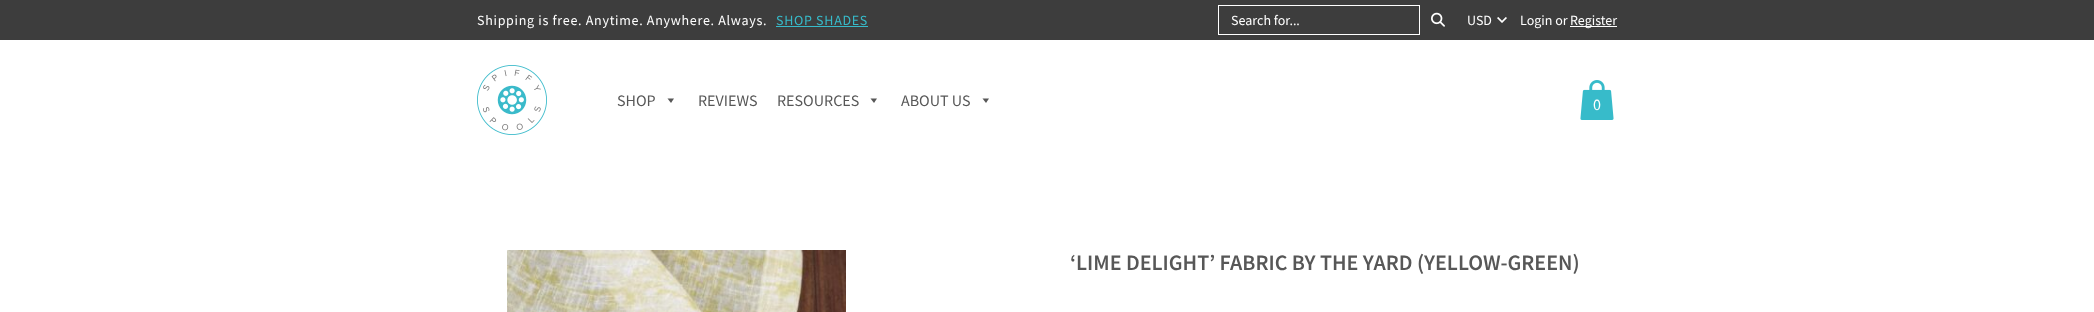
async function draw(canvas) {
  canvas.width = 2094;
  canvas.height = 312;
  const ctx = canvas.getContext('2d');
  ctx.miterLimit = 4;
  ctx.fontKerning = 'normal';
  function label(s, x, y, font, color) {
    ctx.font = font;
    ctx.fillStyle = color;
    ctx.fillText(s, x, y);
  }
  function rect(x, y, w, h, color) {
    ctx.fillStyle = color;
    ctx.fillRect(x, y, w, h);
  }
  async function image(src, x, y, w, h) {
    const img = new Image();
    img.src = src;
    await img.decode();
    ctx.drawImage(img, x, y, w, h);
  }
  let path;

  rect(0, 0, 2094, 312, '#fff');
  rect(0, 0, 2094, 40, '#3d3d3d');
  ctx.letterSpacing = '0.7px';
  label('Shipping is free. Anytime. Anywhere. Always.', 477, 25, '14px Source Sans Pro', '#fff');
  label('SHOP SHADES', 776, 25, '14px Source Sans Pro', '#37bbca');
  rect(776, 26, 92, 1, '#37bbca');
  ctx.strokeStyle = '#fff';
  ctx.strokeRect(1218.5, 5.5, 201, 29);
  ctx.letterSpacing = '0px';
  label('Search for...', 1231, 25, '14px Source Sans Pro', '#fff');
  await image('assets/img1.png', 1431, 12, 14, 15);
  await image('assets/img2.png', 1497, 17, 10, 6);
  label('USD', 1467, 25, '14px Source Sans Pro', '#fff');
  label('Login or', 1520, 25, '14px Source Sans Pro', '#fff');
  rect(1570, 26, 47, 1, '#fff');
  label('Register', 1570, 25, '14px Source Sans Pro', '#fff');
  await image('assets/img3.png', 477, 65, 70, 70);
  label('SHOP', 617, 106, '16px Source Sans Pro', '#575757');
  path = new Path2D('M674 98.5L671 103L667.5 98.5Z');
  ctx.fill(path);
  label('REVIEWS', 698, 106, '16px Source Sans Pro', '#575757');
  label('RESOURCES', 777, 106, '16px Source Sans Pro', '#575757');
  path = new Path2D('M877 98.5L874 103L870.5 98.5Z');
  ctx.fill(path);
  label('ABOUT US', 901, 106, '16px Source Sans Pro', '#575757');
  path = new Path2D('M989 98.5L986 103L982.5 98.5Z');
  ctx.fill(path);
  await image('assets/img4.png', 1580, 80, 34, 40);
  label('0', 1593, 110, '16px Source Sans Pro', '#fff');
  await image('assets/img5.png', 507, 250, 339, 62);
  label('‘LIME DELIGHT’ FABRIC BY THE YARD (YELLOW-GREEN)', 1070, 270, '600 22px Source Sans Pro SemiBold', '#575757');
}

draw(document.querySelector('canvas'));
